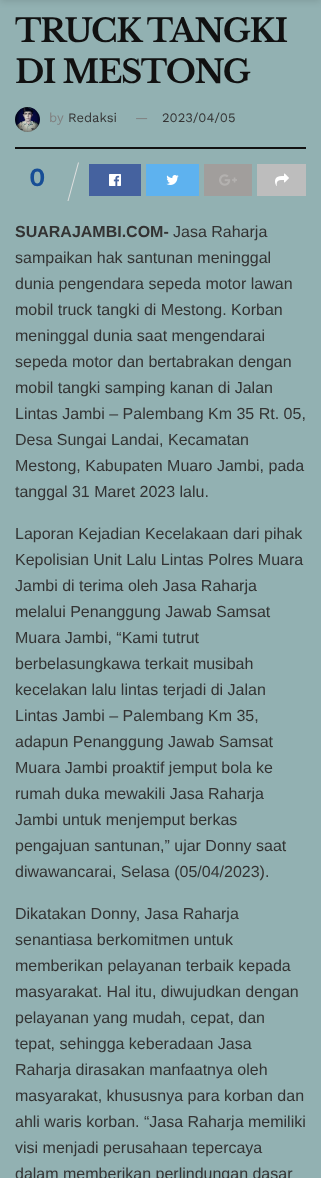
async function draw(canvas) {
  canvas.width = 321;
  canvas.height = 1178;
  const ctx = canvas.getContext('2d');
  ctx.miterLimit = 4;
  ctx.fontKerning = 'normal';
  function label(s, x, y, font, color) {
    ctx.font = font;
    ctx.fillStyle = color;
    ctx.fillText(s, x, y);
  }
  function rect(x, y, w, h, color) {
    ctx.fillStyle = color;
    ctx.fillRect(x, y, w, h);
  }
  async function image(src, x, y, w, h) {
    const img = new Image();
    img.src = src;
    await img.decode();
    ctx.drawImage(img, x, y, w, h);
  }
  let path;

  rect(0, 0, 321, 1178, '#92b1b2');
  ctx.fillStyle = '#0000001a';
  ctx.filter = 'blur(3px)';
  ctx.beginPath();
  ctx.rect(0, -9, 321, 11);
  ctx.fill();
  ctx.filter = 'none';
  rect(15, 147, 291, 2, '#111');
  ctx.letterSpacing = '-1.25px';
  label('TRUCK TANGKI', 15, 42, 'bold 32px Libre Baskerville', '#111');
  label('DI MESTONG', 15, 83, 'bold 32px Libre Baskerville', '#111');
  await image('assets/img1.png', 15, 107, 25, 25);
  ctx.letterSpacing = '0px';
  label('by', 49, 122, '13px Work Sans', '#808080');
  label('Redaksi', 68, 122, '13px Work Sans', '#333');
  label('—', 135, 122, '13px Work Sans', '#808080');
  label('2023/04/05', 162, 122, '13px Work Sans', '#333');
  label('0', 29, 186, '600 26px Work Sans', '#174e96');
  ctx.fillStyle = '#e0e0e0';
  path = new Path2D('M78 162.5H79L68.5 201H67.5Z');
  ctx.fill(path);
  rect(89, 164, 52, 32, '#45629f');
  await image('assets/img2.png', 109, 174, 12, 12);
  rect(146, 164, 53, 32, '#5eb2ef');
  await image('assets/img3.png', 166, 175, 13, 10);
  rect(204, 164, 48, 32, '#a19e9c');
  await image('assets/img4.png', 219, 174, 18, 12);
  rect(257, 164, 49, 32, '#bdbdbd');
  await image('assets/img5.png', 275, 173, 14, 13);
  label('SUARAJAMBI.COM-', 15, 237, 'bold 16px Liberation Sans', '#333');
  label('Jasa Raharja', 173, 237, '16px Liberation Sans', '#333');
  label('sampaikan hak santunan meninggal', 15, 263, '16px Liberation Sans', '#333');
  label('dunia pengendara sepeda motor lawan', 15, 289, '16px Liberation Sans', '#333');
  label('mobil truck tangki di Mestong. Korban', 15, 315, '16px Liberation Sans', '#333');
  label('meninggal dunia saat mengendarai', 15, 341, '16px Liberation Sans', '#333');
  label('sepeda motor dan bertabrakan dengan', 15, 367, '16px Liberation Sans', '#333');
  label('mobil tangki samping kanan di Jalan', 15, 393, '16px Liberation Sans', '#333');
  label('Lintas Jambi – Palembang Km 35 Rt. 05,', 15, 419, '16px Liberation Sans', '#333');
  label('Desa Sungai Landai, Kecamatan', 15, 445, '16px Liberation Sans', '#333');
  label('Mestong, Kabupaten Muaro Jambi, pada', 15, 471, '16px Liberation Sans', '#333');
  label('tanggal 31 Maret 2023 lalu.', 15, 497, '16px Liberation Sans', '#333');
  label('Laporan Kejadian Kecelakaan dari pihak', 15, 539, '16px Liberation Sans', '#333');
  label('Kepolisian Unit Lalu Lintas Polres Muara', 15, 565, '16px Liberation Sans', '#333');
  label('Jambi di terima oleh Jasa Raharja', 15, 591, '16px Liberation Sans', '#333');
  label('melalui Penanggung Jawab Samsat', 15, 617, '16px Liberation Sans', '#333');
  label('Muara Jambi, “Kami tutrut', 15, 643, '16px Liberation Sans', '#333');
  label('berbelasungkawa terkait musibah', 15, 669, '16px Liberation Sans', '#333');
  label('kecelakan lalu lintas terjadi di Jalan', 15, 695, '16px Liberation Sans', '#333');
  label('Lintas Jambi – Palembang Km 35,', 15, 721, '16px Liberation Sans', '#333');
  label('adapun Penanggung Jawab Samsat', 15, 747, '16px Liberation Sans', '#333');
  label('Muara Jambi proaktif jemput bola ke', 15, 773, '16px Liberation Sans', '#333');
  label('rumah duka mewakili Jasa Raharja', 15, 799, '16px Liberation Sans', '#333');
  label('Jambi untuk menjemput berkas', 15, 825, '16px Liberation Sans', '#333');
  label('pengajuan santunan,” ujar Donny saat', 15, 851, '16px Liberation Sans', '#333');
  label('diwawancarai, Selasa (05/04/2023).', 15, 877, '16px Liberation Sans', '#333');
  label('Dikatakan Donny, Jasa Raharja', 15, 919, '16px Liberation Sans', '#333');
  label('senantiasa berkomitmen untuk', 15, 945, '16px Liberation Sans', '#333');
  label('memberikan pelayanan terbaik kepada', 15, 971, '16px Liberation Sans', '#333');
  label('masyarakat. Hal itu, diwujudkan dengan', 15, 997, '16px Liberation Sans', '#333');
  label('pelayanan yang mudah, cepat, dan', 15, 1023, '16px Liberation Sans', '#333');
  label('tepat, sehingga keberadaan Jasa', 15, 1049, '16px Liberation Sans', '#333');
  label('Raharja dirasakan manfaatnya oleh', 15, 1075, '16px Liberation Sans', '#333');
  label('masyarakat, khususnya para korban dan', 15, 1101, '16px Liberation Sans', '#333');
  label('ahli waris korban. “Jasa Raharja memiliki', 15, 1127, '16px Liberation Sans', '#333');
  label('visi menjadi perusahaan tepercaya', 15, 1153, '16px Liberation Sans', '#333');
  label('dalam memberikan perlindungan dasar', 15, 1179, '16px Liberation Sans', '#333');
}

draw(document.querySelector('canvas'));
